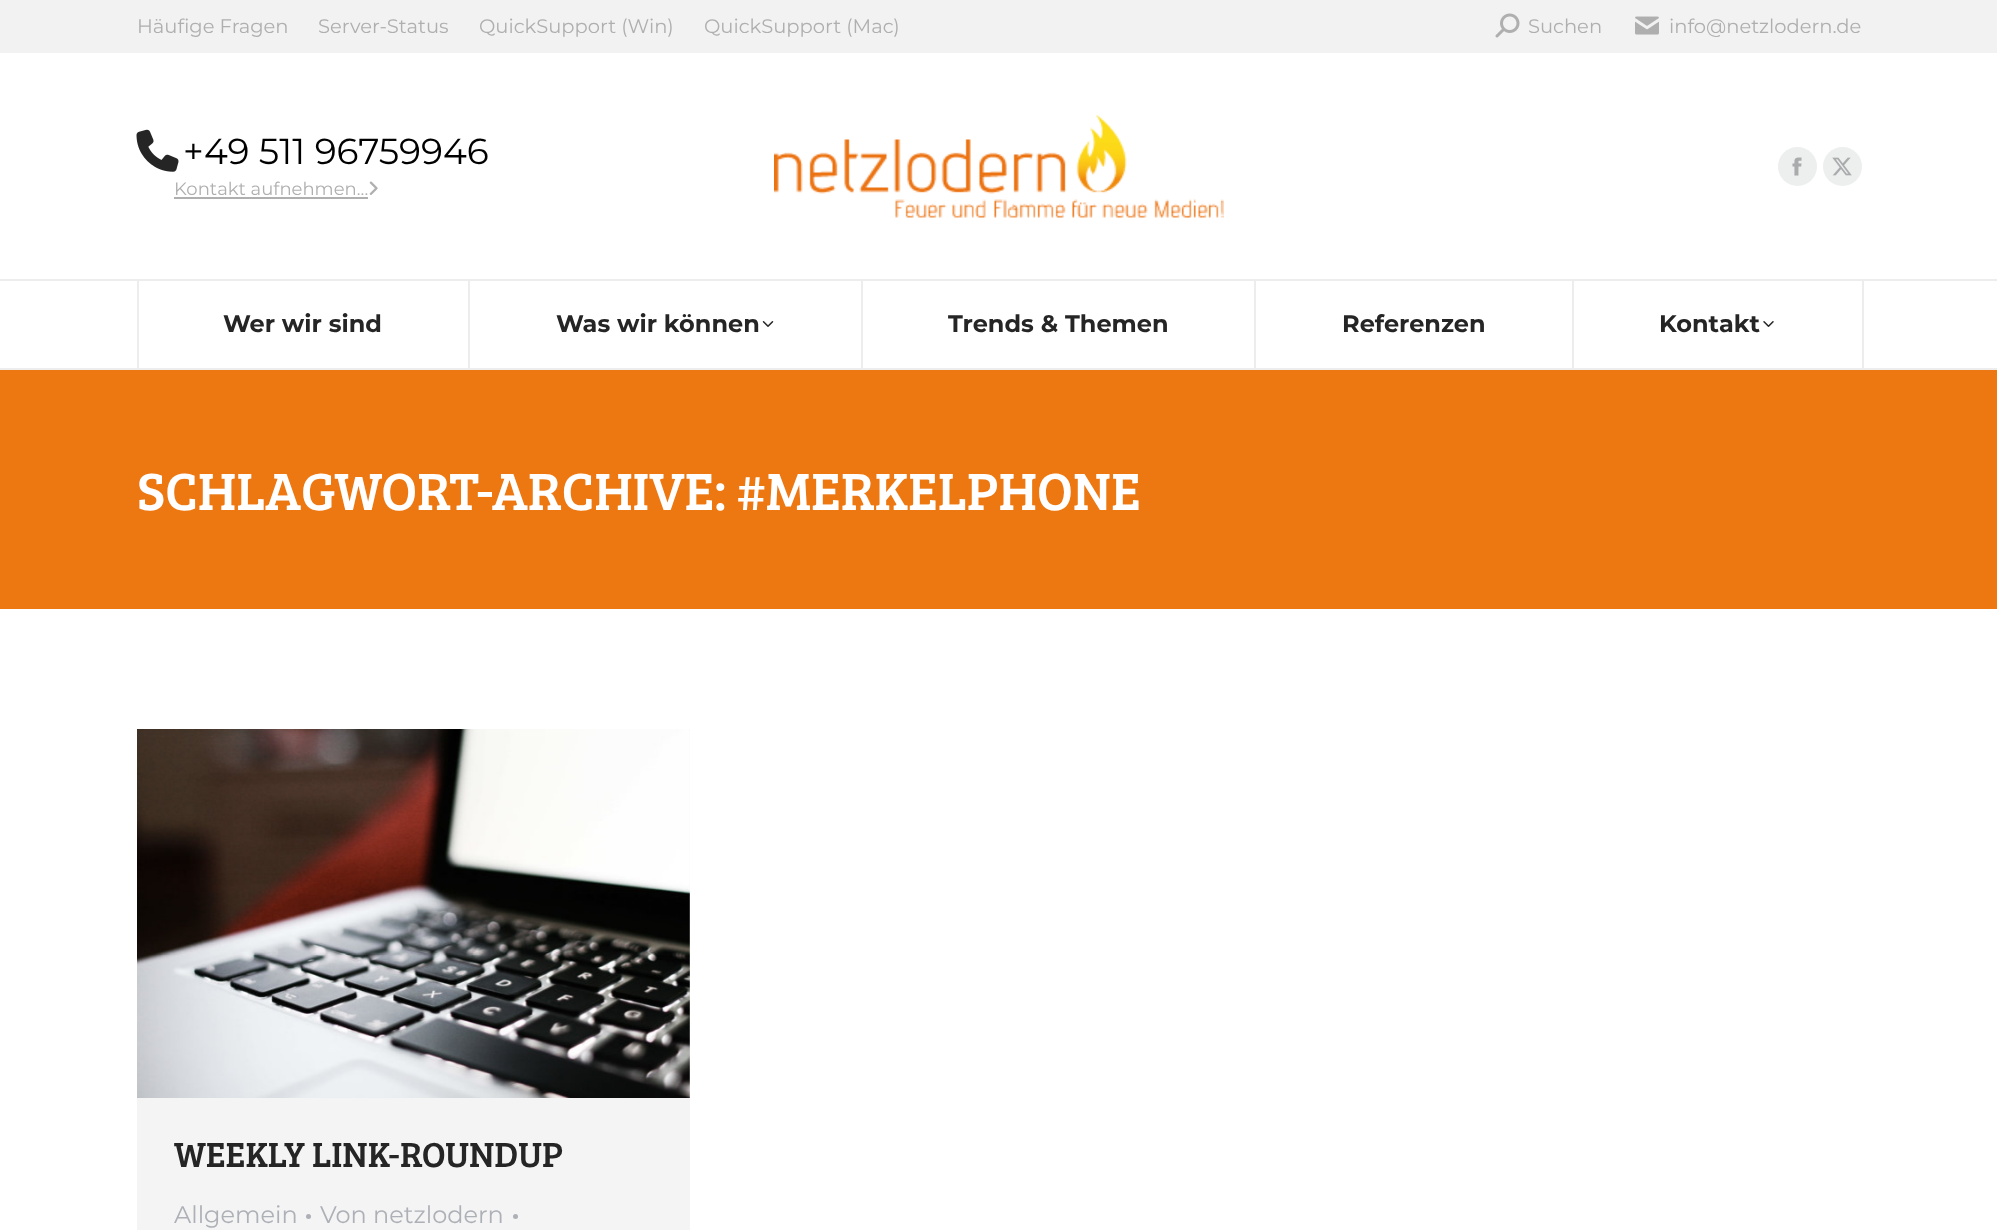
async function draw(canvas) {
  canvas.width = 1997;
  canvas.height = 1230;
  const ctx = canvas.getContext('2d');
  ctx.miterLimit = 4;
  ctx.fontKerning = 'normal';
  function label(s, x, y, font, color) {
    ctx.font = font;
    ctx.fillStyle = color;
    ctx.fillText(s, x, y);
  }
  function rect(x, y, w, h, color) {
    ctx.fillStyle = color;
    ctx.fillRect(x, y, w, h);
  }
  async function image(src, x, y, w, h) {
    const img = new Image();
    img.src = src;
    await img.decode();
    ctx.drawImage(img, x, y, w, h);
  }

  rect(0, 0, 1997, 1230, '#fff');
  rect(0, 368, 1997, 2, '#ededed');
  rect(0, 0, 1997, 53, '#f2f2f2');
  label('Häufige Fragen', 137, 33, '19.5px Montserrat', '#afafaf');
  label('Server-Status', 318, 33, '19.5px Montserrat', '#afafaf');
  label('QuickSupport (Win)', 479, 33, '19.5px Montserrat', '#afafaf');
  label('QuickSupport (Mac)', 704, 33, '19.5px Montserrat', '#afafaf');
  await image('assets/img1.png', 1495, 13, 25, 25);
  label('Suchen', 1528, 33, '19.5px Montserrat', '#afafaf');
  await image('assets/img2.png', 1635, 16, 24, 19);
  label('info@netzlodern.de', 1669, 33, '19.5px Montserrat', '#afafaf');
  await image('assets/img3.png', 136, 129, 43, 43);
  label('+49 511 96759946', 183, 164, '36px Montserrat', '#000');
  label('Kontakt aufnehmen...', 174, 195, '18px Montserrat', '#afafaf');
  rect(174, 197, 194, 2, '#afafaf');
  await image('assets/img4.png', 369, 181, 9, 14);
  await image('assets/img5.png', 774, 115, 450, 103);
  ctx.fillStyle = '#edeeee';
  ctx.beginPath();
  ctx.arc(1797.5, 166.5, 19.5, 0, 2 * Math.PI);
  ctx.fill();
  await image('assets/img6.png', 1792, 157, 10, 19);
  ctx.beginPath();
  ctx.arc(1842.5, 166.5, 19.5, 0, 2 * Math.PI);
  ctx.fill();
  await image('assets/img7.png', 1832, 157, 20, 19);
  rect(0, 279, 1997, 2, '#ededed');
  rect(137, 281, 2, 87, '#ededed');
  label('Wer wir sind', 223, 332, 'bold 24px Montserrat', '#252525');
  rect(468, 281, 2, 87, '#ededed');
  label('Was wir können', 556, 332, 'bold 24px Montserrat', '#252525');
  await image('assets/img8.png', 762, 321, 12, 6);
  rect(861, 281, 2, 87, '#ededed');
  label('Trends & Themen', 948, 332, 'bold 24px Montserrat', '#252525');
  rect(1254, 281, 2, 87, '#ededed');
  label('Referenzen', 1342, 332, 'bold 24px Montserrat', '#252525');
  rect(1572, 281, 2, 87, '#ededed');
  label('Kontakt', 1659, 332, 'bold 24px Montserrat', '#252525');
  await image('assets/img9.png', 1763, 321, 11, 6);
  rect(1862, 281, 2, 87, '#ededed');
  rect(0, 370, 1997, 239, '#ed7710');
  label('SCHLAGWORT-ARCHIVE: #MERKELPHONE', 137, 510, '54px Bree Serif', '#fff');
  rect(137, 729, 553, 501, '#f4f4f4');
  await image('assets/img10.png', 137, 729, 553, 369);
  label('WEEKLY LINK-ROUNDUP', 174, 1167, '36px Bree Serif', '#252525');
  label('Allgemein', 174, 1223, '24px Montserrat', '#adb0b6');
  ctx.beginPath();
  ctx.arc(308.5, 1216.5, 2.5, 0, 2 * Math.PI);
  ctx.fill();
  label('Von netzlodern', 320, 1223, '24px Montserrat', '#adb0b6');
  ctx.beginPath();
  ctx.arc(515.5, 1216.5, 2.5, 0, 2 * Math.PI);
  ctx.fill();
}

draw(document.querySelector('canvas'));
